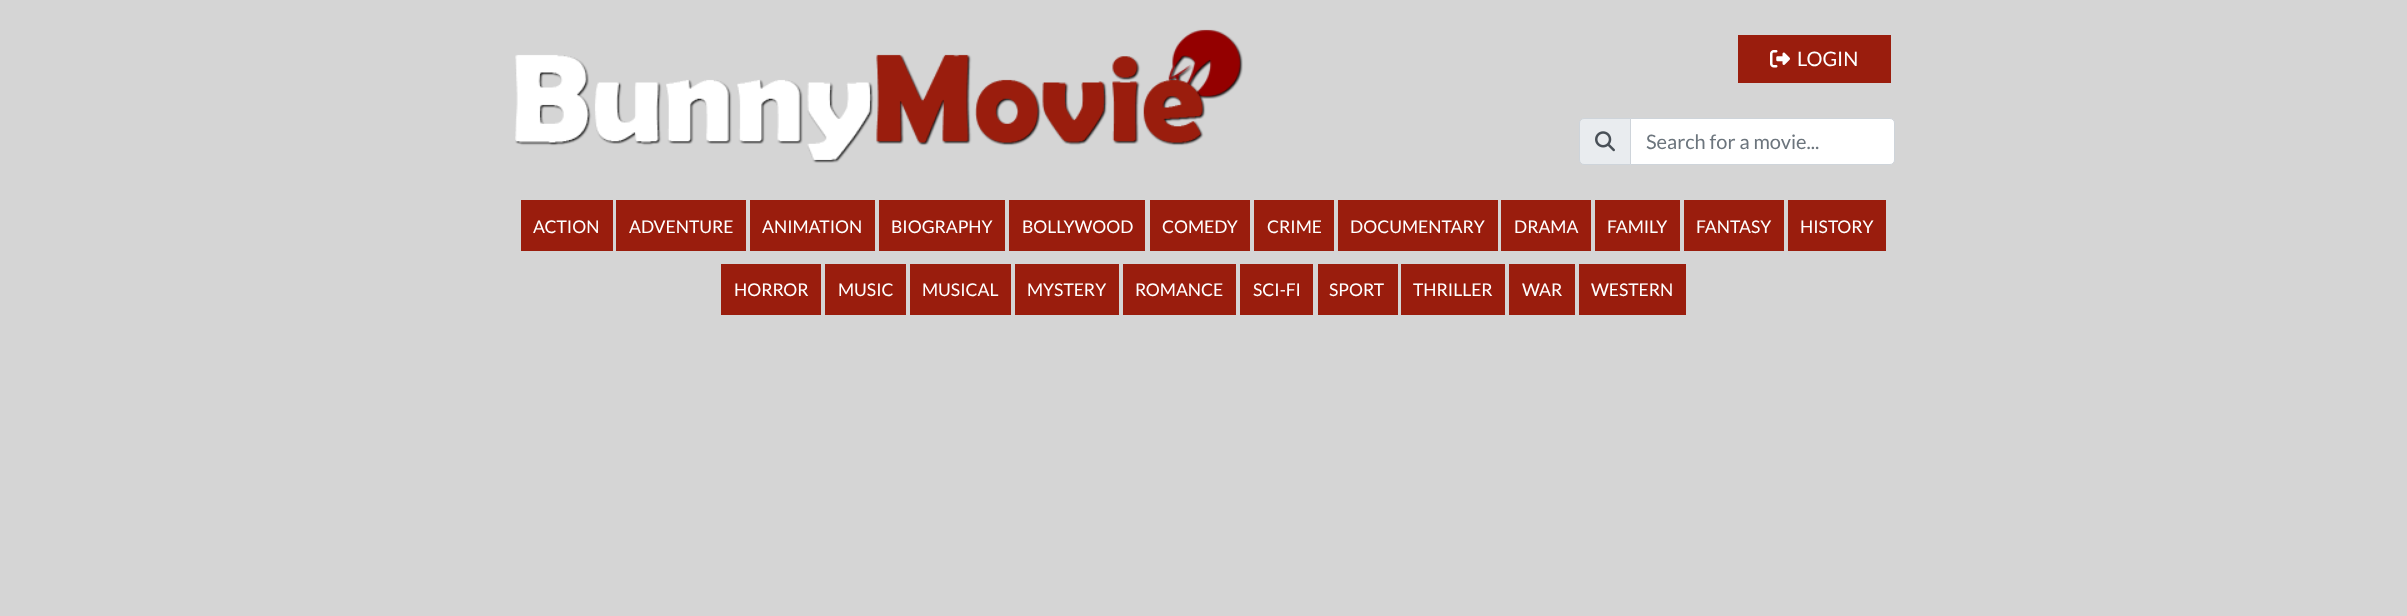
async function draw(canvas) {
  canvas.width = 2407;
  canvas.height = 616;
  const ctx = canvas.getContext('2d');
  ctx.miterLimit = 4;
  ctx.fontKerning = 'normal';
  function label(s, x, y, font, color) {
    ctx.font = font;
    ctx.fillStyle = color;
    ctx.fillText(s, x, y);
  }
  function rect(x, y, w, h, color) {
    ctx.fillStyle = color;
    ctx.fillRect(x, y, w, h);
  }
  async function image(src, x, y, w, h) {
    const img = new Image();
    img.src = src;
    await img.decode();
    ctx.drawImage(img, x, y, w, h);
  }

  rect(0, 0, 2407, 616, '#d5d5d5');
  await image('assets/img1.png', 515, 29, 728, 134);
  rect(1738, 35, 153, 48, '#9a1d0d');
  await image('assets/img2.png', 1770, 50, 20, 18);
  label('LOGIN', 1797, 66, '20px Lato', '#fff');
  ctx.fillStyle = '#e9ecef';
  ctx.beginPath();
  ctx.roundRect(1579.5, 118.5, 51, 46, [4.5, 0, 0, 4.5]);
  ctx.fill();
  ctx.strokeStyle = '#ced4da';
  ctx.stroke();
  await image('assets/img3.png', 1595, 131, 20, 21);
  ctx.fillStyle = '#fff';
  ctx.beginPath();
  ctx.roundRect(1630.5, 118.5, 264, 46, [0, 4.5, 4.5, 0]);
  ctx.fill();
  ctx.stroke();
  label('Search for a movie...', 1646, 149, '20px Lato', '#6c757d');
  rect(521, 200, 92, 51, '#9a1d0d');
  label('ACTION', 533, 233, '17.5px Lato', '#fff');
  rect(616, 200, 130, 51, '#9a1d0d');
  label('ADVENTURE', 629, 233, '17.5px Lato', '#fff');
  rect(750, 200, 125, 51, '#9a1d0d');
  label('ANIMATION', 762, 233, '17.5px Lato', '#fff');
  rect(879, 200, 126, 51, '#9a1d0d');
  label('BIOGRAPHY', 891, 233, '17.5px Lato', '#fff');
  rect(1009, 200, 136, 51, '#9a1d0d');
  label('BOLLYWOOD', 1022, 233, '17.5px Lato', '#fff');
  rect(1150, 200, 100, 51, '#9a1d0d');
  label('COMEDY', 1162, 233, '17.5px Lato', '#fff');
  rect(1254, 200, 80, 51, '#9a1d0d');
  label('CRIME', 1267, 233, '17.5px Lato', '#fff');
  rect(1338, 200, 160, 51, '#9a1d0d');
  label('DOCUMENTARY', 1350, 233, '17.5px Lato', '#fff');
  rect(1501, 200, 90, 51, '#9a1d0d');
  label('DRAMA', 1514, 233, '17.5px Lato', '#fff');
  rect(1595, 200, 85, 51, '#9a1d0d');
  label('FAMILY', 1607, 233, '17.5px Lato', '#fff');
  rect(1684, 200, 100, 51, '#9a1d0d');
  label('FANTASY', 1696, 233, '17.5px Lato', '#fff');
  rect(1788, 200, 98, 51, '#9a1d0d');
  label('HISTORY', 1800, 233, '17.5px Lato', '#fff');
  rect(721, 264, 100, 51, '#9a1d0d');
  label('HORROR', 734, 296, '17.5px Lato', '#fff');
  rect(825, 264, 81, 51, '#9a1d0d');
  label('MUSIC', 838, 296, '17.5px Lato', '#fff');
  rect(910, 264, 101, 51, '#9a1d0d');
  label('MUSICAL', 922, 296, '17.5px Lato', '#fff');
  rect(1015, 264, 104, 51, '#9a1d0d');
  label('MYSTERY', 1027, 296, '17.5px Lato', '#fff');
  rect(1123, 264, 113, 51, '#9a1d0d');
  label('ROMANCE', 1135, 296, '17.5px Lato', '#fff');
  rect(1240, 264, 73, 51, '#9a1d0d');
  label('SCI-FI', 1253, 296, '17.5px Lato', '#fff');
  rect(1318, 264, 80, 51, '#9a1d0d');
  label('SPORT', 1329, 296, '17.5px Lato', '#fff');
  rect(1401, 264, 104, 51, '#9a1d0d');
  label('THRILLER', 1413, 296, '17.5px Lato', '#fff');
  rect(1509, 264, 66, 51, '#9a1d0d');
  label('WAR', 1522, 296, '17.5px Lato', '#fff');
  rect(1579, 264, 107, 51, '#9a1d0d');
  label('WESTERN', 1591, 296, '17.5px Lato', '#fff');
}

draw(document.querySelector('canvas'));
